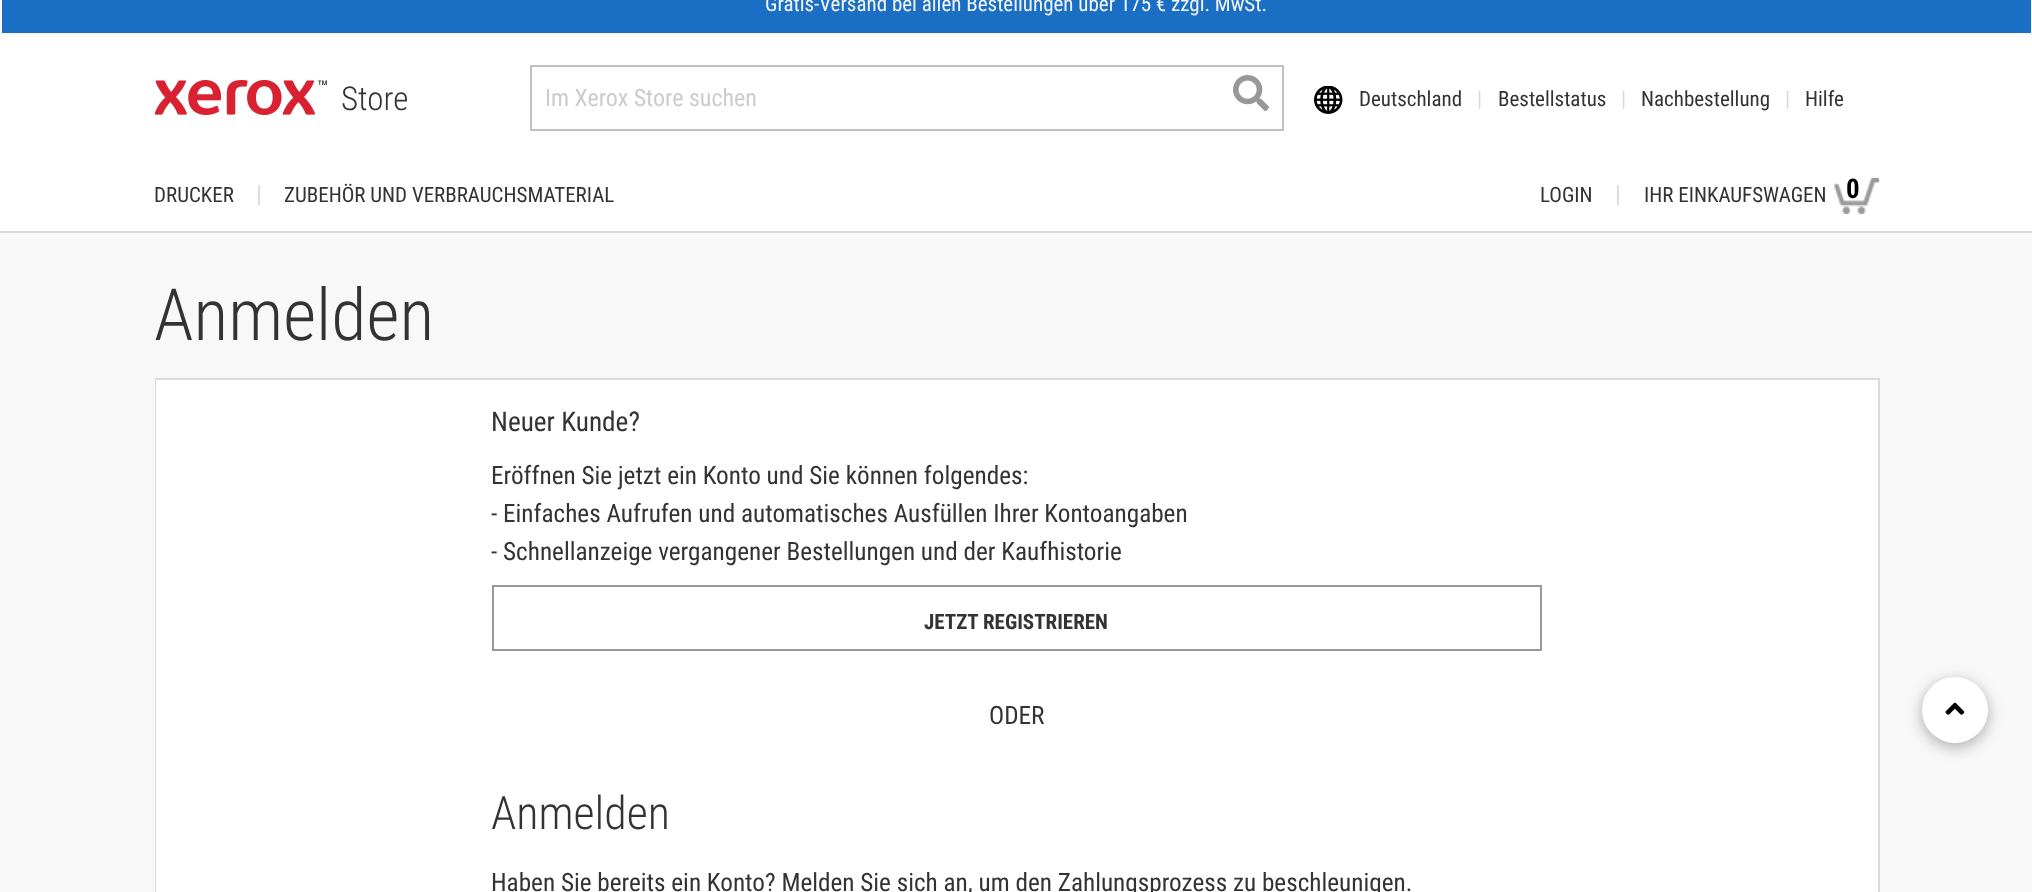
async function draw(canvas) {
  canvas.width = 2032;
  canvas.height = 892;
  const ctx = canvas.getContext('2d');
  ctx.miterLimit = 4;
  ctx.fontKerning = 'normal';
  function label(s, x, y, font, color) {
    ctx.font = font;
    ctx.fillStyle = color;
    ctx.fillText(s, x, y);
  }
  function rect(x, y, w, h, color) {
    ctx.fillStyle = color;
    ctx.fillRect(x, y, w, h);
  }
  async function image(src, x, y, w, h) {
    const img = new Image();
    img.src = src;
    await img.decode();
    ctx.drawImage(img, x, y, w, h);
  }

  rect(0, 0, 2032, 892, '#f8f8f8');
  rect(2, 0, 2029, 33, '#1a6fc5');
  label('Gratis-Versand bei allen Bestellungen über 175 € zzgl. MwSt.', 765, 11, '21px Roboto Condensed', '#f4f4f4');
  rect(0, 35, 2032, 196, '#fff');
  rect(0, 231, 2032, 2, '#d9d9d9');
  await image('assets/img1.png', 155, 79, 172, 37);
  label('Store', 341, 110, '300 33px Roboto Condensed', '#333');
  ctx.strokeStyle = '#c1c1c1';
  ctx.lineWidth = 2;
  ctx.strokeRect(531, 66, 752, 64);
  label('Im Xerox Store suchen', 545, 106, '24px Roboto Condensed', '#ccc');
  await image('assets/img2.png', 1233, 75, 36, 36);
  await image('assets/img3.png', 1314, 86, 29, 28);
  label('Deutschland', 1359, 106, '21px Roboto Condensed', '#333');
  label('|', 1477, 106, '21px Roboto Condensed', '#d9d9d9');
  label('Bestellstatus', 1498, 106, '21px Roboto Condensed', '#333');
  label('|', 1621, 106, '21px Roboto Condensed', '#d9d9d9');
  label('Nachbestellung', 1641, 106, '21px Roboto Condensed', '#333');
  label('|', 1785, 106, '21px Roboto Condensed', '#d9d9d9');
  label('Hilfe', 1805, 106, '21px Roboto Condensed', '#333');
  label('DRUCKER', 154, 202, '21px Roboto Condensed', '#333');
  label('|', 256, 202, '24px Roboto Condensed', '#d9d9d9');
  label('ZUBEHÖR UND VERBRAUCHSMATERIAL', 284, 202, '21px Roboto Condensed', '#333');
  label('LOGIN', 1540, 202, '21px Roboto Condensed', '#333');
  label('|', 1615, 202, '24px Roboto Condensed', '#d9d9d9');
  label('IHR EINKAUFSWAGEN', 1644, 202, '21px Roboto Condensed', '#333');
  await image('assets/img4.png', 1834, 178, 46, 36);
  label('0', 1846, 198, 'bold 27px Roboto Condensed', '#000');
  label('Anmelden', 154, 340, '300 72px Roboto Condensed', '#333');
  ctx.strokeStyle = '#dadada';
  ctx.strokeRect(156, 379, 1723, 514);
  rect(156, 380, 1722, 512, '#fff');
  label('Neuer Kunde?', 491, 431, '27.25px Roboto Condensed', '#333');
  label('Eröffnen Sie jetzt ein Konto und Sie können folgendes:', 491, 484, '25.2px Roboto Condensed', '#333');
  label('- Einfaches Aufrufen und automatisches Ausfüllen Ihrer Kontoangaben', 491, 522, '25.2px Roboto Condensed', '#333');
  label('- Schnellanzeige vergangener Bestellungen und der Kaufhistorie', 491, 560, '25.2px Roboto Condensed', '#333');
  ctx.strokeStyle = '#989898';
  ctx.strokeRect(493, 586, 1048, 64);
  label('JETZT REGISTRIEREN', 924, 629, 'bold 21px Roboto Condensed', '#333');
  label('ODER', 989, 724, '25.2px Roboto Condensed', '#333');
  label('Anmelden', 491, 829, '300 46px Roboto Condensed', '#333');
  label('Haben Sie bereits ein Konto? Melden Sie sich an, um den Zahlungsprozess zu beschleunigen.', 491, 891, '25.2px Roboto Condensed', '#333');
  ctx.fillStyle = '#0000004d';
  ctx.filter = 'blur(7.5px)';
  ctx.beginPath();
  ctx.roundRect(1922, 681, 66, 66, 33);
  ctx.fill();
  ctx.filter = 'none';
  ctx.fillStyle = '#fff';
  ctx.beginPath();
  ctx.arc(1955, 710, 33, 0, 2 * Math.PI);
  ctx.fill();
  await image('assets/img5.png', 1945, 702, 20, 13);
}

draw(document.querySelector('canvas'));
